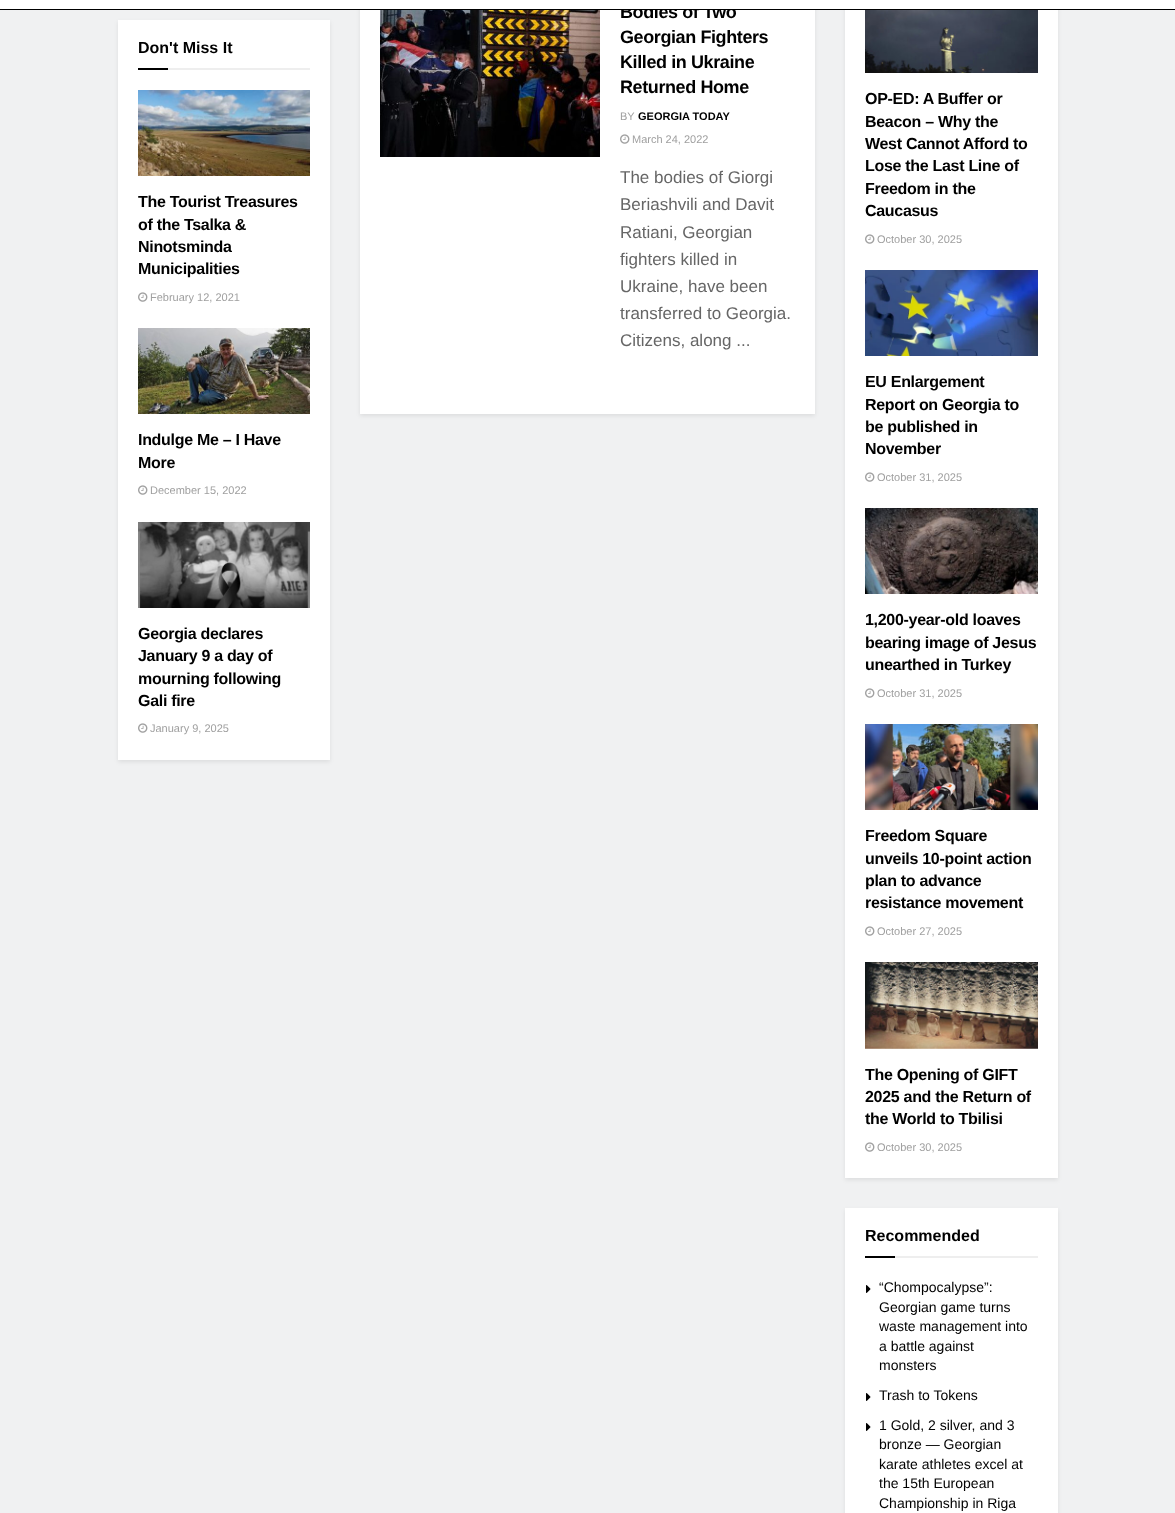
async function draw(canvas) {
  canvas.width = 1175;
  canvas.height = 1513;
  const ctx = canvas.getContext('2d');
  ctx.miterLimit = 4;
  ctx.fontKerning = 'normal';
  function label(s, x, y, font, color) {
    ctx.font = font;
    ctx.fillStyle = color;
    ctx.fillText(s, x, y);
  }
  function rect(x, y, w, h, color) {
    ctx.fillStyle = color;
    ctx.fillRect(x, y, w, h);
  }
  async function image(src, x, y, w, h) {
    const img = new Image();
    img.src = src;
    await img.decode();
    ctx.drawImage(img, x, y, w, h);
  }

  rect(0, 0, 1175, 1513, '#f0f1f2');
  ctx.fillStyle = '#00000014';
  ctx.filter = 'blur(2px)';
  ctx.beginPath();
  ctx.rect(360, -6, 455, 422);
  ctx.fill();
  ctx.filter = 'none';
  rect(360, 10, 455, 404, '#fff');
  ctx.letterSpacing = '-0.4px';
  label('Bodies of Two', 620, 18, 'bold 18px Liberation Sans', '#000');
  ctx.fillStyle = '#00000014';
  ctx.filter = 'blur(2px)';
  ctx.beginPath();
  ctx.rect(845, -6, 213, 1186);
  ctx.fill();
  ctx.filter = 'none';
  rect(0, 0, 1175, 9, '#fff');
  rect(0, 9, 1175, 1, '#000');
  ctx.fillStyle = '#00000014';
  ctx.filter = 'blur(2px)';
  ctx.beginPath();
  ctx.rect(118, 22, 212, 740);
  ctx.fill();
  ctx.filter = 'none';
  rect(118, 20, 212, 740, '#fff');
  rect(168, 68, 142, 2, '#eee');
  ctx.letterSpacing = '0px';
  label('Don\'t Miss It', 138, 53, 'bold 16px Liberation Sans', '#000');
  rect(138, 68, 30, 2, '#000');
  await image('assets/img1.png', 138, 90, 172, 86);
  ctx.letterSpacing = '-0.3px';
  label('The Tourist Treasures', 138, 207, 'bold 16px Liberation Sans', '#000');
  label('of the Tsalka &', 138, 230, 'bold 16px Liberation Sans', '#000');
  label('Ninotsminda', 138, 252, 'bold 16px Liberation Sans', '#000');
  label('Municipalities', 138, 274, 'bold 16px Liberation Sans', '#000');
  await image('assets/img2.png', 138, 292, 10, 10);
  ctx.letterSpacing = '0px';
  label('February 12, 2021', 150, 301, '11px Liberation Sans', '#a0a0a0');
  await image('assets/img3.png', 138, 328, 172, 86);
  ctx.letterSpacing = '-0.3px';
  label('Indulge Me – I Have', 138, 445, 'bold 16px Liberation Sans', '#000');
  label('More', 138, 468, 'bold 16px Liberation Sans', '#000');
  await image('assets/img2.png', 138, 485, 10, 10);
  ctx.letterSpacing = '0px';
  label('December 15, 2022', 150, 494, '11px Liberation Sans', '#a0a0a0');
  await image('assets/img4.png', 138, 522, 172, 86);
  ctx.letterSpacing = '-0.3px';
  label('Georgia declares', 138, 639, 'bold 16px Liberation Sans', '#000');
  label('January 9 a day of', 138, 661, 'bold 16px Liberation Sans', '#000');
  label('mourning following', 138, 684, 'bold 16px Liberation Sans', '#000');
  label('Gali fire', 138, 706, 'bold 16px Liberation Sans', '#000');
  await image('assets/img2.png', 138, 723, 10, 10);
  ctx.letterSpacing = '0px';
  label('January 9, 2025', 150, 732, '11px Liberation Sans', '#a0a0a0');
  await image('assets/img5.png', 380, 10, 220, 147);
  ctx.letterSpacing = '-0.4px';
  label('Georgian Fighters', 620, 43, 'bold 18px Liberation Sans', '#000');
  label('Killed in Ukraine', 620, 68, 'bold 18px Liberation Sans', '#000');
  label('Returned Home', 620, 93, 'bold 18px Liberation Sans', '#000');
  ctx.letterSpacing = '0px';
  label('BY', 620, 120, '11px Liberation Sans', '#a0a0a0');
  label('GEORGIA TODAY', 638, 120, 'bold 11px Liberation Sans', '#000');
  await image('assets/img2.png', 620, 134, 10, 10);
  label('March 24, 2022', 632, 143, '11px Liberation Sans', '#a0a0a0');
  label('The bodies of Giorgi', 620, 183, '17px Liberation Sans', '#666');
  label('Beriashvili and Davit', 620, 210, '17px Liberation Sans', '#666');
  label('Ratiani, Georgian', 620, 238, '17px Liberation Sans', '#666');
  label('fighters killed in', 620, 265, '17px Liberation Sans', '#666');
  label('Ukraine, have been', 620, 292, '17px Liberation Sans', '#666');
  label('transferred to Georgia.', 620, 319, '17px Liberation Sans', '#666');
  label('Citizens, along ...', 620, 346, '17px Liberation Sans', '#666');
  rect(845, 10, 213, 1168, '#fff');
  await image('assets/img6.png', 865, 10, 173, 63);
  ctx.letterSpacing = '-0.3px';
  label('OP-ED: A Buffer or', 865, 104, 'bold 16px Liberation Sans', '#000');
  label('Beacon – Why the', 865, 127, 'bold 16px Liberation Sans', '#000');
  label('West Cannot Afford to', 865, 149, 'bold 16px Liberation Sans', '#000');
  label('Lose the Last Line of', 865, 171, 'bold 16px Liberation Sans', '#000');
  label('Freedom in the', 865, 194, 'bold 16px Liberation Sans', '#000');
  label('Caucasus', 865, 216, 'bold 16px Liberation Sans', '#000');
  await image('assets/img2.png', 865, 234, 10, 10);
  ctx.letterSpacing = '0px';
  label('October 30, 2025', 877, 243, '11px Liberation Sans', '#a0a0a0');
  await image('assets/img7.png', 865, 270, 173, 86);
  ctx.letterSpacing = '-0.3px';
  label('EU Enlargement', 865, 387, 'bold 16px Liberation Sans', '#000');
  label('Report on Georgia to', 865, 410, 'bold 16px Liberation Sans', '#000');
  label('be published in', 865, 432, 'bold 16px Liberation Sans', '#000');
  label('November', 865, 454, 'bold 16px Liberation Sans', '#000');
  await image('assets/img2.png', 865, 472, 10, 10);
  ctx.letterSpacing = '0px';
  label('October 31, 2025', 877, 481, '11px Liberation Sans', '#a0a0a0');
  await image('assets/img8.png', 865, 508, 173, 86);
  ctx.letterSpacing = '-0.3px';
  label('1,200-year-old loaves', 865, 625, 'bold 16px Liberation Sans', '#000');
  label('bearing image of Jesus', 865, 648, 'bold 16px Liberation Sans', '#000');
  label('unearthed in Turkey', 865, 670, 'bold 16px Liberation Sans', '#000');
  await image('assets/img2.png', 865, 688, 10, 10);
  ctx.letterSpacing = '0px';
  label('October 31, 2025', 877, 697, '11px Liberation Sans', '#a0a0a0');
  await image('assets/img9.png', 865, 724, 173, 86);
  ctx.letterSpacing = '-0.3px';
  label('Freedom Square', 865, 841, 'bold 16px Liberation Sans', '#000');
  label('unveils 10-point action', 865, 864, 'bold 16px Liberation Sans', '#000');
  label('plan to advance', 865, 886, 'bold 16px Liberation Sans', '#000');
  label('resistance movement', 865, 908, 'bold 16px Liberation Sans', '#000');
  await image('assets/img2.png', 865, 926, 10, 10);
  ctx.letterSpacing = '0px';
  label('October 27, 2025', 877, 935, '11px Liberation Sans', '#a0a0a0');
  await image('assets/img11.png', 885, 1048, 33, 1);
  await image('assets/img10.png', 865, 962, 173, 87);
  ctx.letterSpacing = '-0.3px';
  label('The Opening of GIFT', 865, 1080, 'bold 16px Liberation Sans', '#000');
  label('2025 and the Return of', 865, 1102, 'bold 16px Liberation Sans', '#000');
  label('the World to Tbilisi', 865, 1124, 'bold 16px Liberation Sans', '#000');
  await image('assets/img2.png', 865, 1142, 10, 10);
  ctx.letterSpacing = '0px';
  label('October 30, 2025', 877, 1151, '11px Liberation Sans', '#a0a0a0');
  ctx.fillStyle = '#00000014';
  ctx.filter = 'blur(2px)';
  ctx.beginPath();
  ctx.rect(845, 1210, 213, 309);
  ctx.fill();
  ctx.filter = 'none';
  rect(845, 1208, 213, 305, '#fff');
  rect(895, 1256, 143, 2, '#eee');
  label('Recommended', 865, 1241, 'bold 16px Liberation Sans', '#000');
  rect(865, 1256, 30, 2, '#000');
  await image('assets/img12.png', 866, 1285, 5, 8);
  label('“Chompocalypse”:', 879, 1292, '14px Liberation Sans', '#000');
  label('Georgian game turns', 879, 1312, '14px Liberation Sans', '#000');
  label('waste management into', 879, 1331, '14px Liberation Sans', '#000');
  label('a battle against', 879, 1351, '14px Liberation Sans', '#000');
  label('monsters', 879, 1370, '14px Liberation Sans', '#000');
  await image('assets/img12.png', 866, 1393, 5, 8);
  label('Trash to Tokens', 879, 1400, '14px Liberation Sans', '#000');
  await image('assets/img12.png', 866, 1423, 5, 8);
  label('1 Gold, 2 silver, and 3', 879, 1430, '14px Liberation Sans', '#000');
  label('bronze — Georgian', 879, 1449, '14px Liberation Sans', '#000');
  label('karate athletes excel at', 879, 1469, '14px Liberation Sans', '#000');
  label('the 15th European', 879, 1488, '14px Liberation Sans', '#000');
  label('Championship in Riga', 879, 1508, '14px Liberation Sans', '#000');
}

draw(document.querySelector('canvas'));
